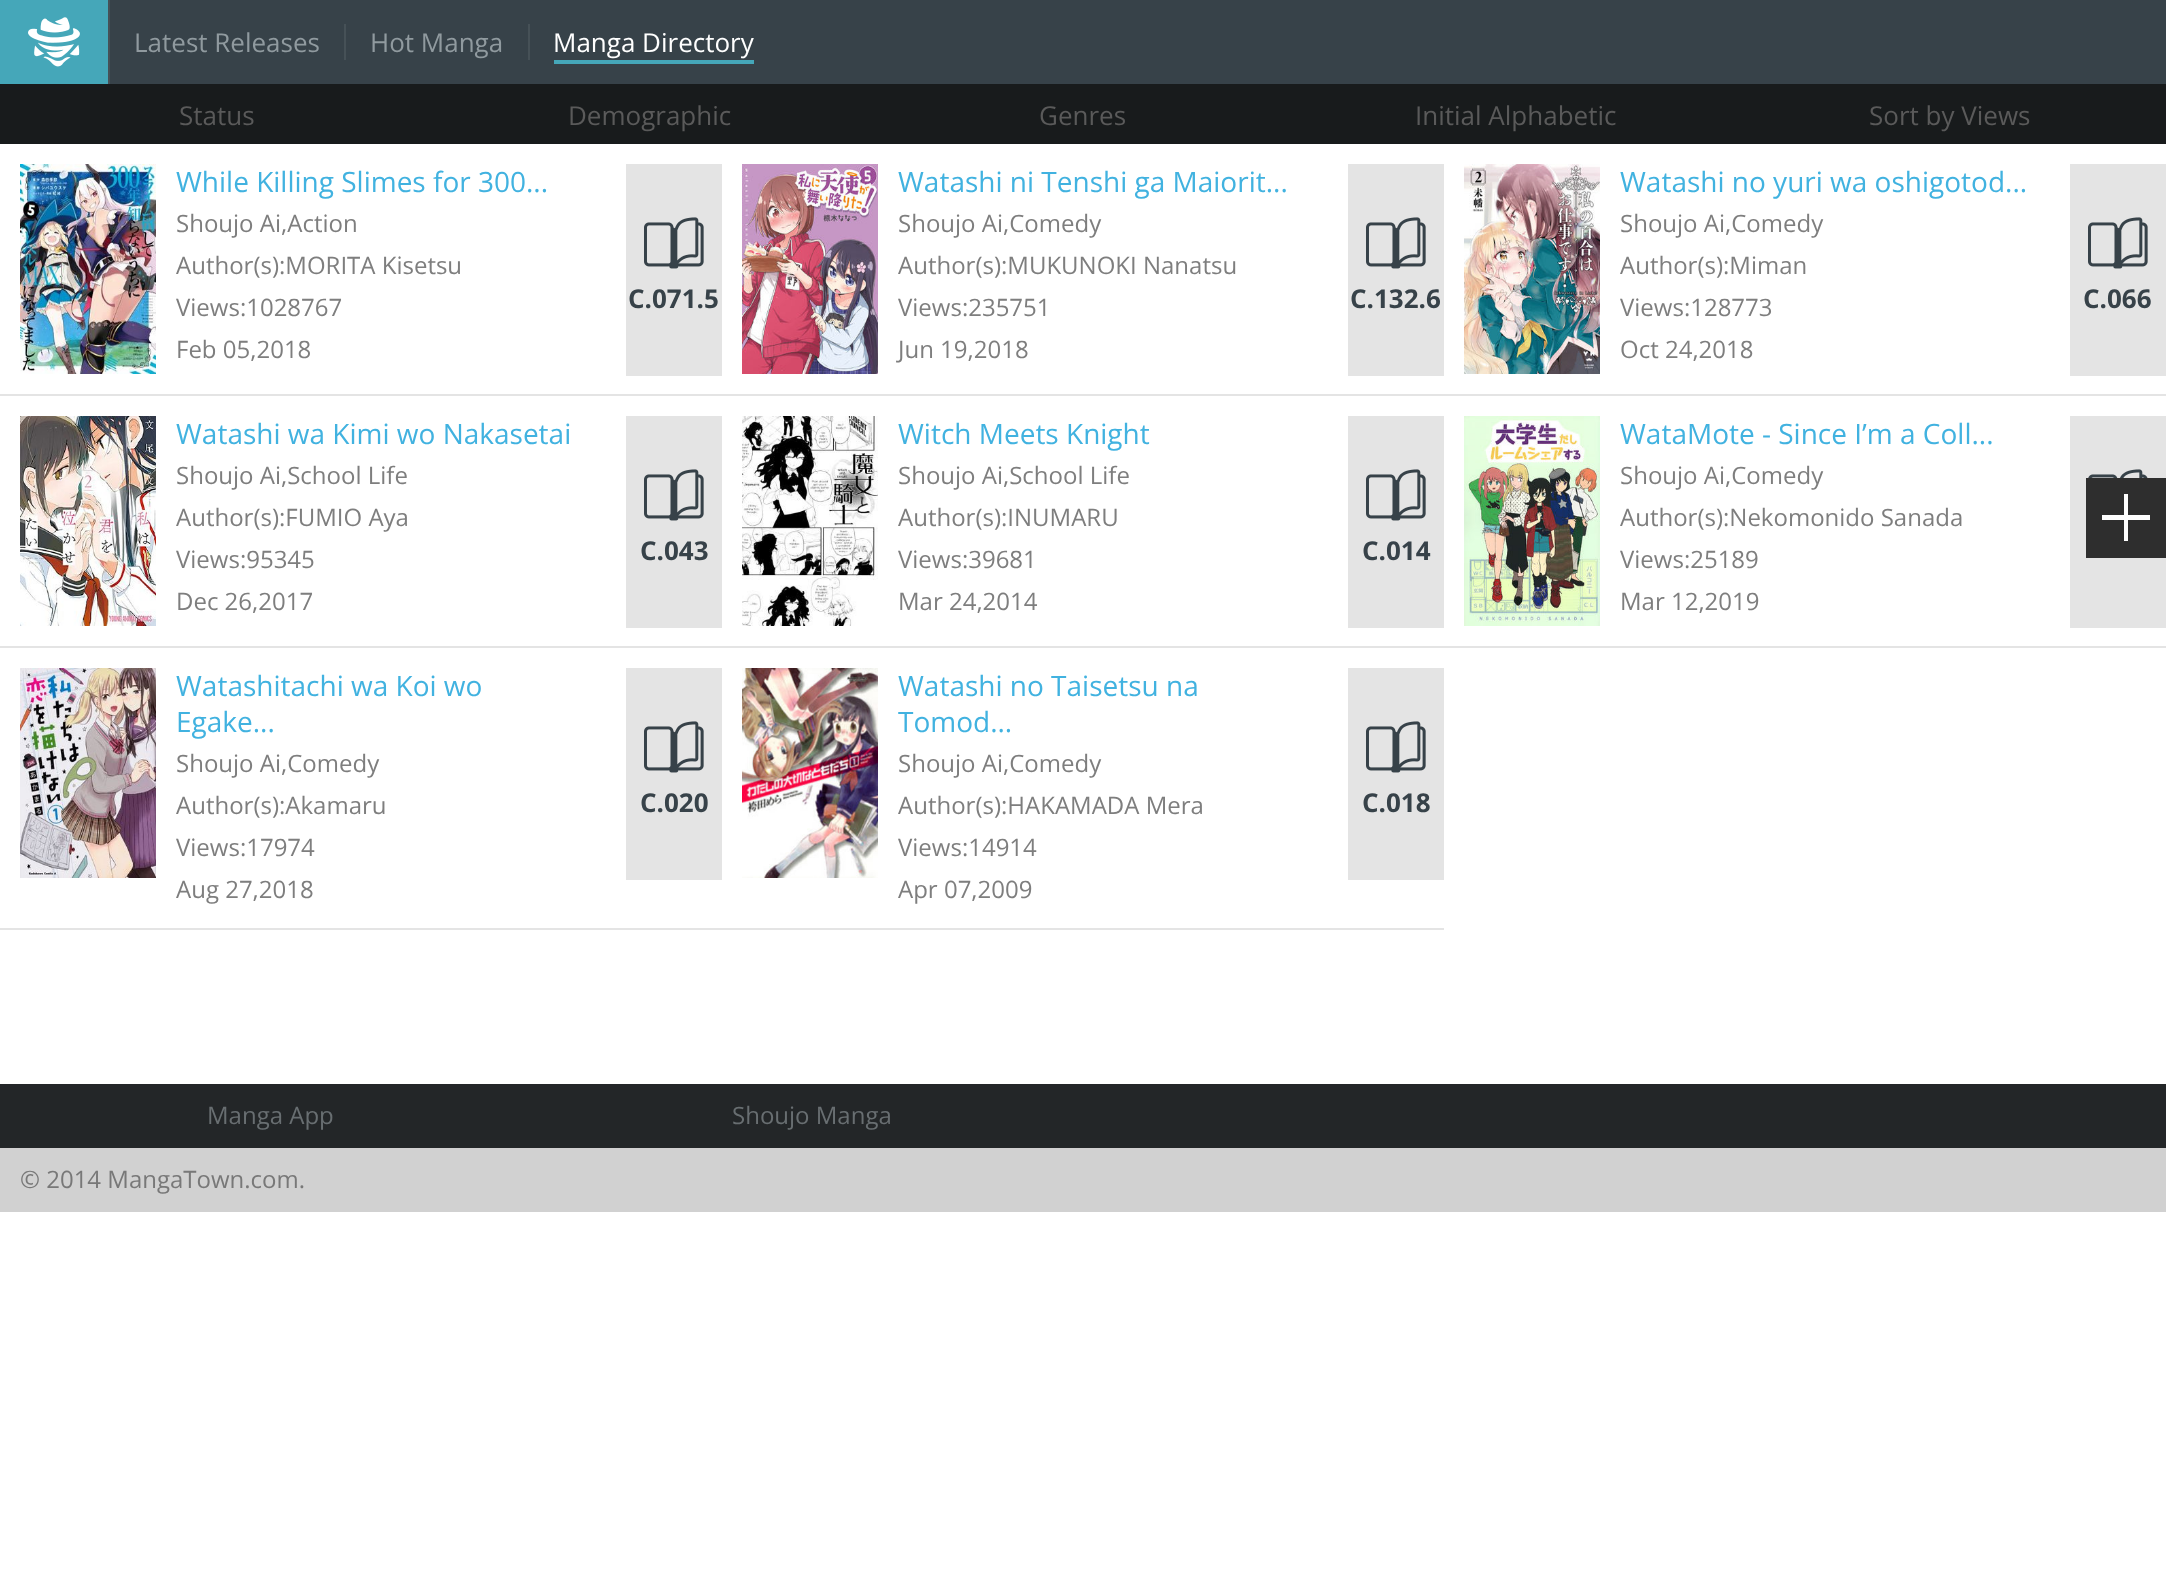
async function draw(canvas) {
  canvas.width = 2166;
  canvas.height = 1594;
  const ctx = canvas.getContext('2d');
  ctx.miterLimit = 4;
  ctx.fontKerning = 'normal';
  function label(s, x, y, font, color) {
    ctx.font = font;
    ctx.fillStyle = color;
    ctx.fillText(s, x, y);
  }
  function rect(x, y, w, h, color) {
    ctx.fillStyle = color;
    ctx.fillRect(x, y, w, h);
  }
  async function image(src, x, y, w, h) {
    const img = new Image();
    img.src = src;
    await img.decode();
    ctx.drawImage(img, x, y, w, h);
  }
  let path;

  rect(0, 0, 2166, 1594, '#fff');
  rect(110, 0, 2056, 84, '#374249');
  rect(0, 0, 108, 84, '#45a7b9');
  rect(108, 0, 2, 84, '#465157');
  await image('assets/img1.png', 28, 17, 52, 50);
  label('Latest Releases', 134, 52, '26px Open Sans', '#909a9f');
  rect(344, 24, 2, 36, '#465157');
  label('Hot Manga', 370, 52, '26px Open Sans', '#909a9f');
  rect(528, 24, 2, 36, '#465157');
  label('Manga Directory', 553, 52, '26px Open Sans', '#fff');
  rect(554, 60, 200, 4, '#45a7b9');
  rect(0, 84, 2166, 60, '#181b1c');
  label('Status', 179, 125, '26px Open Sans', '#5a5a5a');
  label('Demographic', 568, 125, '26px Open Sans', '#5a5a5a');
  label('Genres', 1039, 125, '26px Open Sans', '#5a5a5a');
  label('Initial Alphabetic', 1415, 125, '26px Open Sans', '#5a5a5a');
  label('Sort by Views', 1869, 125, '26px Open Sans', '#5a5a5a');
  rect(0, 394, 2166, 2, '#e4e4e4');
  await image('assets/img2.png', 20, 164, 136, 210);
  label('While Killing Slimes for 300...', 176, 192, '28px Open Sans', '#41b2e0');
  label('Shoujo Ai,Action', 176, 232, '24px Open Sans', '#7e7e7e');
  label('Author(s):MORITA Kisetsu', 176, 274, '24px Open Sans', '#7e7e7e');
  label('Views:1028767', 176, 316, '24px Open Sans', '#7e7e7e');
  label('Feb 05,2018', 176, 358, '24px Open Sans', '#7e7e7e');
  rect(626, 164, 96, 212, '#e4e4e4');
  await image('assets/img3.png', 644, 217, 60, 52);
  label('C.071.5', 628, 308, 'bold 26px Open Sans', '#374249');
  await image('assets/img4.png', 742, 164, 136, 210);
  label('Watashi ni Tenshi ga Maiorit...', 898, 192, '28px Open Sans', '#41b2e0');
  label('Shoujo Ai,Comedy', 898, 232, '24px Open Sans', '#7e7e7e');
  label('Author(s):MUKUNOKI Nanatsu', 898, 274, '24px Open Sans', '#7e7e7e');
  label('Views:235751', 898, 316, '24px Open Sans', '#7e7e7e');
  label('Jun 19,2018', 898, 358, '24px Open Sans', '#7e7e7e');
  rect(1348, 164, 96, 212, '#e4e4e4');
  await image('assets/img3.png', 1366, 217, 60, 52);
  label('C.132.6', 1350, 308, 'bold 26px Open Sans', '#374249');
  await image('assets/img5.png', 1464, 164, 136, 210);
  label('Watashi no yuri wa oshigotod...', 1620, 192, '28px Open Sans', '#41b2e0');
  label('Shoujo Ai,Comedy', 1620, 232, '24px Open Sans', '#7e7e7e');
  label('Author(s):Miman', 1620, 274, '24px Open Sans', '#7e7e7e');
  label('Views:128773', 1620, 316, '24px Open Sans', '#7e7e7e');
  label('Oct 24,2018', 1620, 358, '24px Open Sans', '#7e7e7e');
  rect(2070, 164, 96, 212, '#e4e4e4');
  await image('assets/img3.png', 2088, 217, 60, 52);
  label('C.066', 2083, 308, 'bold 26px Open Sans', '#374249');
  rect(0, 646, 2166, 2, '#e4e4e4');
  await image('assets/img6.png', 20, 416, 136, 210);
  label('Watashi wa Kimi wo Nakasetai', 176, 444, '28px Open Sans', '#41b2e0');
  label('Shoujo Ai,School Life', 176, 484, '24px Open Sans', '#7e7e7e');
  label('Author(s):FUMIO Aya', 176, 526, '24px Open Sans', '#7e7e7e');
  label('Views:95345', 176, 568, '24px Open Sans', '#7e7e7e');
  label('Dec 26,2017', 176, 610, '24px Open Sans', '#7e7e7e');
  rect(626, 416, 96, 212, '#e4e4e4');
  await image('assets/img3.png', 644, 469, 60, 52);
  label('C.043', 640, 560, 'bold 26px Open Sans', '#374249');
  await image('assets/img7.png', 742, 416, 136, 210);
  label('Witch Meets Knight', 898, 444, '28px Open Sans', '#41b2e0');
  label('Shoujo Ai,School Life', 898, 484, '24px Open Sans', '#7e7e7e');
  label('Author(s):INUMARU', 898, 526, '24px Open Sans', '#7e7e7e');
  label('Views:39681', 898, 568, '24px Open Sans', '#7e7e7e');
  label('Mar 24,2014', 898, 610, '24px Open Sans', '#7e7e7e');
  rect(1348, 416, 96, 212, '#e4e4e4');
  await image('assets/img3.png', 1366, 469, 60, 52);
  label('C.014', 1362, 560, 'bold 26px Open Sans', '#374249');
  await image('assets/img8.png', 1464, 416, 136, 210);
  label('WataMote - Since I’m a Coll...', 1620, 444, '28px Open Sans', '#41b2e0');
  label('Shoujo Ai,Comedy', 1620, 484, '24px Open Sans', '#7e7e7e');
  label('Author(s):Nekomonido Sanada', 1620, 526, '24px Open Sans', '#7e7e7e');
  label('Views:25189', 1620, 568, '24px Open Sans', '#7e7e7e');
  label('Mar 12,2019', 1620, 610, '24px Open Sans', '#7e7e7e');
  rect(2070, 416, 96, 212, '#e4e4e4');
  await image('assets/img9.png', 2088, 469, 60, 9);
  rect(0, 928, 1444, 2, '#e4e4e4');
  await image('assets/img10.png', 20, 668, 136, 210);
  label('Watashitachi wa Koi wo', 176, 696, '28px Open Sans', '#41b2e0');
  label('Egake...', 176, 732, '28px Open Sans', '#41b2e0');
  label('Shoujo Ai,Comedy', 176, 772, '24px Open Sans', '#7e7e7e');
  label('Author(s):Akamaru', 176, 814, '24px Open Sans', '#7e7e7e');
  label('Views:17974', 176, 856, '24px Open Sans', '#7e7e7e');
  label('Aug 27,2018', 176, 898, '24px Open Sans', '#7e7e7e');
  rect(626, 668, 96, 212, '#e4e4e4');
  await image('assets/img3.png', 644, 721, 60, 52);
  label('C.020', 640, 812, 'bold 26px Open Sans', '#374249');
  await image('assets/img11.png', 742, 668, 136, 210);
  label('Watashi no Taisetsu na', 898, 696, '28px Open Sans', '#41b2e0');
  label('Tomod...', 898, 732, '28px Open Sans', '#41b2e0');
  label('Shoujo Ai,Comedy', 898, 772, '24px Open Sans', '#7e7e7e');
  label('Author(s):HAKAMADA Mera', 898, 814, '24px Open Sans', '#7e7e7e');
  label('Views:14914', 898, 856, '24px Open Sans', '#7e7e7e');
  label('Apr 07,2009', 898, 898, '24px Open Sans', '#7e7e7e');
  rect(1348, 668, 96, 212, '#e4e4e4');
  await image('assets/img3.png', 1366, 721, 60, 52);
  label('C.018', 1362, 812, 'bold 26px Open Sans', '#374249');
  rect(2086, 478, 80, 80, '#2e2e2e');
  ctx.fillStyle = '#fff';
  path = new Path2D('M2150 515H2128V494H2124V515H2102V520H2124V541H2128V520H2150Z');
  ctx.fill(path);
  rect(0, 1084, 2166, 64, '#232628');
  label('Manga App', 207, 1124, '24px Open Sans', '#686e71');
  label('Shoujo Manga', 732, 1124, '24px Open Sans', '#686e71');
  rect(0, 1148, 2166, 64, '#d1d1d1');
  label('© 2014 MangaTown.com.', 20, 1188, '24px Open Sans', '#787878');
}

draw(document.querySelector('canvas'));
